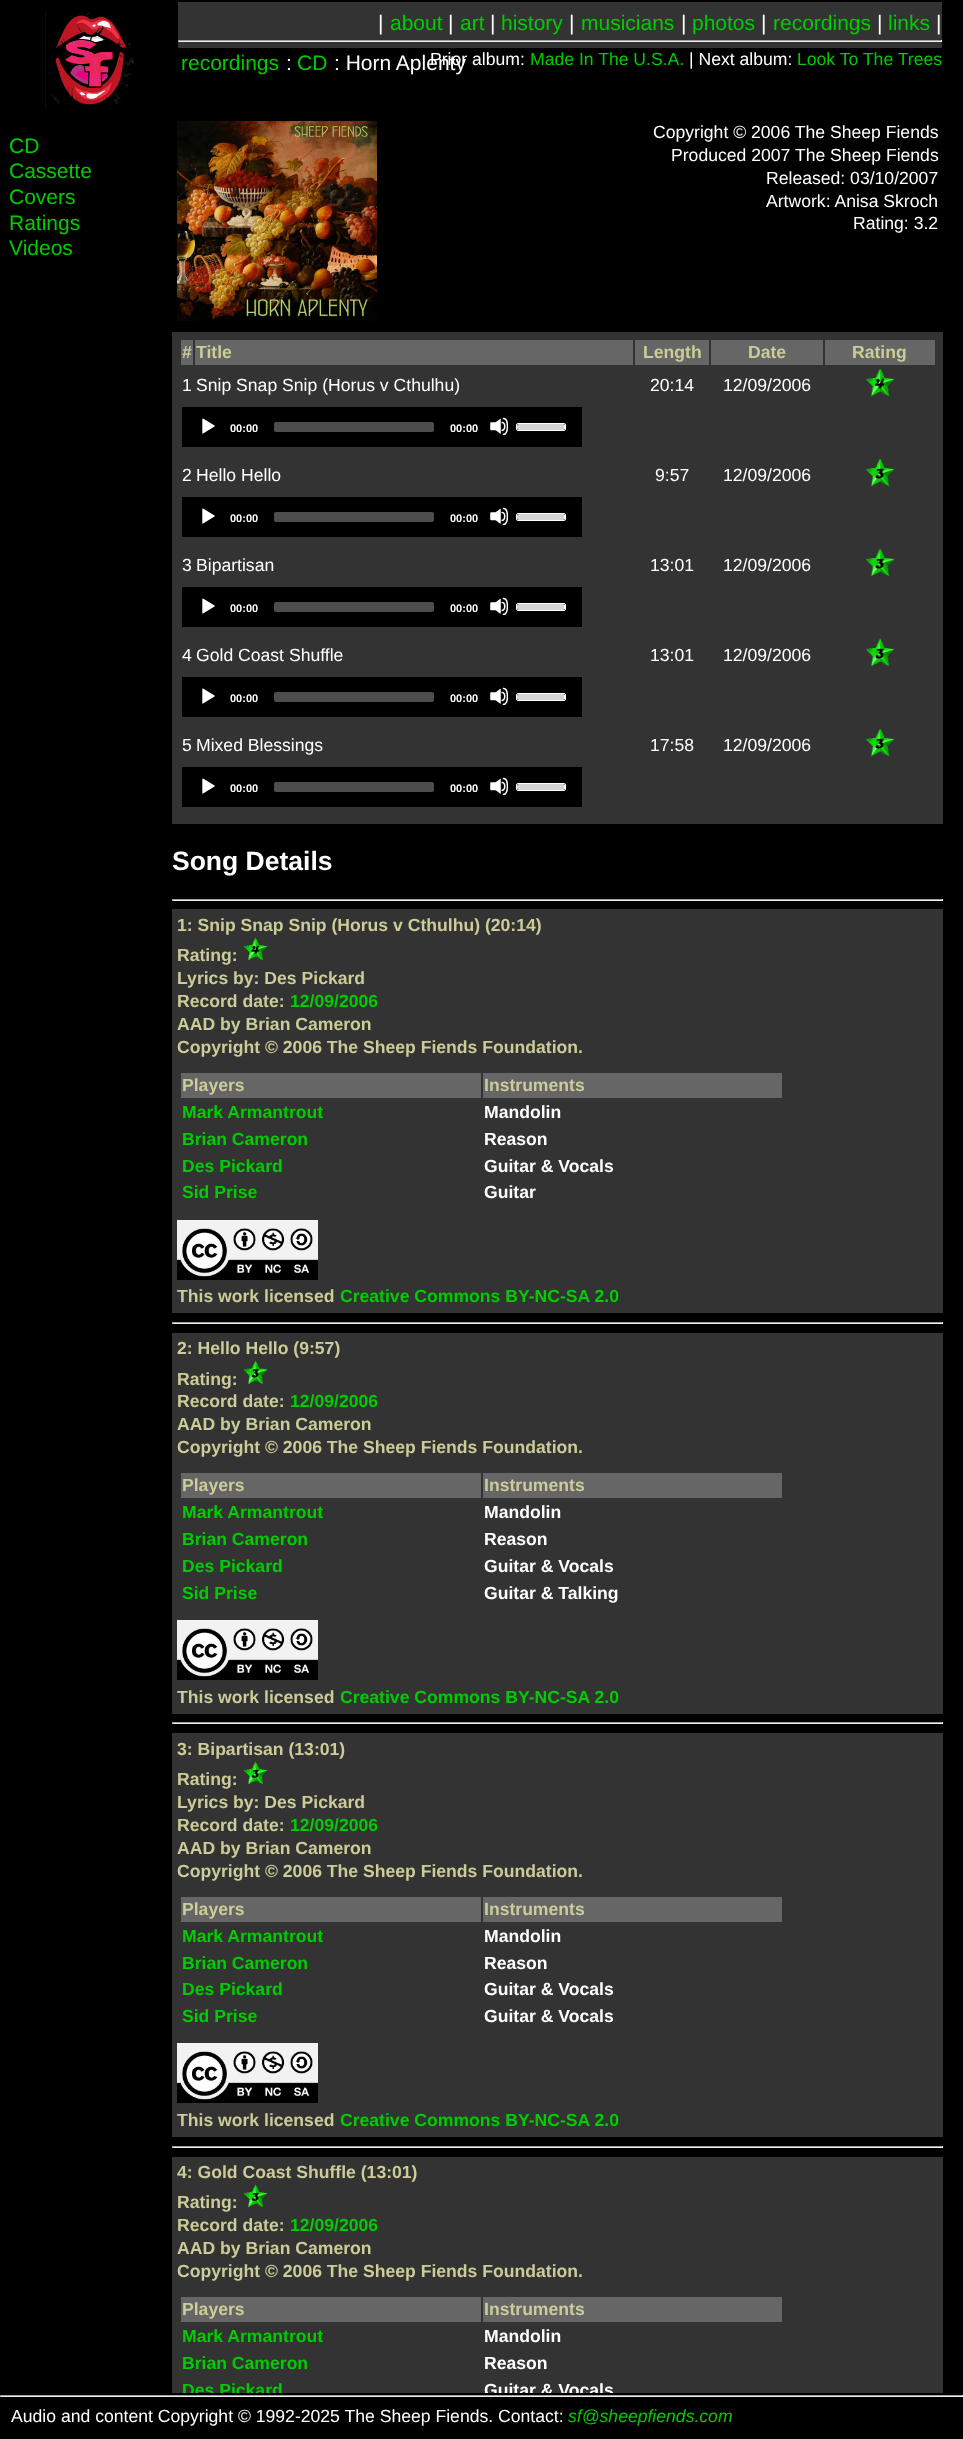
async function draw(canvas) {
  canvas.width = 963;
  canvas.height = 2439;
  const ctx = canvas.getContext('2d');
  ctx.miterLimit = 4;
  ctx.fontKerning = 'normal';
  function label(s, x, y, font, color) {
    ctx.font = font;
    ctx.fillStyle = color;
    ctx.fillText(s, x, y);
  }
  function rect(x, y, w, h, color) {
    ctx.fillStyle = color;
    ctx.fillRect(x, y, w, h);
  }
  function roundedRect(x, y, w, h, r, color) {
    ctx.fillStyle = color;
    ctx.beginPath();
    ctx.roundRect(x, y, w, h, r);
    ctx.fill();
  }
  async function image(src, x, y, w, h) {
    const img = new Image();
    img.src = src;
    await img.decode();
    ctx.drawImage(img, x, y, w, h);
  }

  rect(0, 0, 963, 2439, '#000');
  await image('assets/img1.png', 45, 11, 89, 98);
  rect(178, 2, 764, 46, '#333');
  label('|', 378, 30, '21px Liberation Sans', '#fff');
  label('about', 390, 30, '21px Liberation Sans', '#0c0');
  label('|', 448, 30, '21px Liberation Sans', '#fff');
  label('art', 460, 30, '21px Liberation Sans', '#0c0');
  label('|', 490, 30, '21px Liberation Sans', '#fff');
  label('history', 501, 30, '21px Liberation Sans', '#0c0');
  label('|', 569, 30, '21px Liberation Sans', '#fff');
  label('musicians', 581, 30, '21px Liberation Sans', '#0c0');
  label('|', 681, 30, '21px Liberation Sans', '#fff');
  label('photos', 692, 30, '21px Liberation Sans', '#0c0');
  label('|', 761, 30, '21px Liberation Sans', '#fff');
  label('recordings', 773, 30, '21px Liberation Sans', '#0c0');
  label('|', 877, 30, '21px Liberation Sans', '#fff');
  label('links', 888, 30, '21px Liberation Sans', '#0c0');
  label('|', 936, 30, '21px Liberation Sans', '#fff');
  rect(178, 40, 764, 1, '#9f9f9f');
  rect(941, 40, 1, 2, '#eee');
  rect(178, 41, 764, 1, '#eee');
  rect(178, 40, 1, 2, '#9f9f9f');
  label('recordings', 181, 70, '21px Liberation Sans', '#0c0');
  label(':', 286, 70, '21px Liberation Sans', '#fff');
  label('CD', 297, 70, '21px Liberation Sans', '#0c0');
  label(': Horn Aplenty', 334, 70, '21px Liberation Sans', '#fff');
  label('Prior album:', 430, 65, '17.6px Liberation Sans', '#fff');
  label('Made In The U.S.A.', 530, 65, '17.6px Liberation Sans', '#0c0');
  label('| Next album:', 689, 65, '17.6px Liberation Sans', '#fff');
  label('Look To The Trees', 797, 65, '17.6px Liberation Sans', '#0c0');
  label('CD', 9, 153, '21px Liberation Sans', '#0c0');
  label('Cassette', 9, 178, '21px Liberation Sans', '#0c0');
  label('Covers', 9, 204, '21px Liberation Sans', '#0c0');
  label('Ratings', 9, 230, '21px Liberation Sans', '#0c0');
  label('Videos', 9, 255, '21px Liberation Sans', '#0c0');
  await image('assets/img2.png', 177, 121, 200, 200);
  label('Copyright © 2006 The Sheep Fiends', 653, 138, '17.6px Liberation Sans', '#fff');
  label('Produced 2007 The Sheep Fiends', 671, 161, '17.6px Liberation Sans', '#fff');
  label('Released: 03/10/2007', 766, 184, '17.6px Liberation Sans', '#fff');
  label('Artwork: Anisa Skroch', 766, 207, '17.6px Liberation Sans', '#fff');
  label('Rating: 3.2', 853, 229, '17.6px Liberation Sans', '#fff');
  rect(172, 332, 771, 492, '#333');
  rect(181, 340, 12, 25, '#666');
  label('#', 182, 358, 'bold 17.6px Liberation Sans', '#cc9');
  rect(195, 340, 438, 25, '#666');
  label('Title', 196, 358, 'bold 17.6px Liberation Sans', '#cc9');
  rect(635, 340, 74, 25, '#666');
  label('Length', 643, 358, 'bold 17.6px Liberation Sans', '#cc9');
  rect(711, 340, 112, 25, '#666');
  label('Date', 748, 358, 'bold 17.6px Liberation Sans', '#cc9');
  rect(825, 340, 110, 25, '#666');
  label('Rating', 852, 358, 'bold 17.6px Liberation Sans', '#cc9');
  label('1', 182, 391, '17.6px Liberation Sans', '#fff');
  label('Snip Snap Snip (Horus v Cthulhu)', 196, 391, '17.6px Liberation Sans', '#fff');
  label('20:14', 650, 391, '17.6px Liberation Sans', '#fff');
  label('12/09/2006', 723, 391, '17.6px Liberation Sans', '#fff');
  await image('assets/img3.png', 866, 368, 29, 29);
  rect(182, 407, 400, 40, '#000');
  await image('assets/img4.png', 202, 418, 13, 16);
  label('00:00', 230, 432, 'bold 11px Liberation Sans', '#fff');
  roundedRect(274, 422, 160, 10, 2, '#4d4d4d');
  label('00:00', 450, 432, 'bold 11px Liberation Sans', '#fff');
  await image('assets/img5.png', 490, 417, 18, 18);
  ctx.fillStyle = '#282828';
  ctx.beginPath();
  ctx.roundRect(516.5, 423.5, 49, 7, 1.5);
  ctx.fill();
  ctx.strokeStyle = '#fff';
  ctx.stroke();
  roundedRect(517, 424, 48, 6, 2, '#d4d4d4');
  rect(564, 425, 1, 4, '#fff');
  label('2', 182, 481, '17.6px Liberation Sans', '#fff');
  label('Hello Hello', 196, 481, '17.6px Liberation Sans', '#fff');
  label('9:57', 655, 481, '17.6px Liberation Sans', '#fff');
  label('12/09/2006', 723, 481, '17.6px Liberation Sans', '#fff');
  await image('assets/img6.png', 866, 458, 29, 29);
  rect(182, 497, 400, 40, '#000');
  await image('assets/img4.png', 202, 508, 13, 16);
  label('00:00', 230, 522, 'bold 11px Liberation Sans', '#fff');
  roundedRect(274, 512, 160, 10, 2, '#4d4d4d');
  label('00:00', 450, 522, 'bold 11px Liberation Sans', '#fff');
  await image('assets/img7.png', 490, 507, 18, 18);
  ctx.fillStyle = '#282828';
  ctx.beginPath();
  ctx.roundRect(516.5, 513.5, 49, 7, 1.5);
  ctx.fill();
  ctx.stroke();
  roundedRect(517, 514, 48, 6, 2, '#d4d4d4');
  rect(564, 515, 1, 4, '#fff');
  label('3', 182, 571, '17.6px Liberation Sans', '#fff');
  label('Bipartisan', 196, 571, '17.6px Liberation Sans', '#fff');
  label('13:01', 650, 571, '17.6px Liberation Sans', '#fff');
  label('12/09/2006', 723, 571, '17.6px Liberation Sans', '#fff');
  await image('assets/img6.png', 866, 548, 29, 29);
  rect(182, 587, 400, 40, '#000');
  await image('assets/img4.png', 202, 598, 13, 16);
  label('00:00', 230, 612, 'bold 11px Liberation Sans', '#fff');
  roundedRect(274, 602, 160, 10, 2, '#4d4d4d');
  label('00:00', 450, 612, 'bold 11px Liberation Sans', '#fff');
  await image('assets/img5.png', 490, 597, 18, 18);
  ctx.fillStyle = '#282828';
  ctx.beginPath();
  ctx.roundRect(516.5, 603.5, 49, 7, 1.5);
  ctx.fill();
  ctx.stroke();
  roundedRect(517, 604, 48, 6, 2, '#d4d4d4');
  rect(564, 605, 1, 4, '#fff');
  label('4', 182, 661, '17.6px Liberation Sans', '#fff');
  label('Gold Coast Shuffle', 196, 661, '17.6px Liberation Sans', '#fff');
  label('13:01', 650, 661, '17.6px Liberation Sans', '#fff');
  label('12/09/2006', 723, 661, '17.6px Liberation Sans', '#fff');
  await image('assets/img6.png', 866, 638, 29, 29);
  rect(182, 677, 400, 40, '#000');
  await image('assets/img4.png', 202, 688, 13, 16);
  label('00:00', 230, 702, 'bold 11px Liberation Sans', '#fff');
  roundedRect(274, 692, 160, 10, 2, '#4d4d4d');
  label('00:00', 450, 702, 'bold 11px Liberation Sans', '#fff');
  await image('assets/img5.png', 490, 687, 18, 18);
  ctx.fillStyle = '#282828';
  ctx.beginPath();
  ctx.roundRect(516.5, 693.5, 49, 7, 1.5);
  ctx.fill();
  ctx.stroke();
  roundedRect(517, 694, 48, 6, 2, '#d4d4d4');
  rect(564, 695, 1, 4, '#fff');
  label('5', 182, 751, '17.6px Liberation Sans', '#fff');
  label('Mixed Blessings', 196, 751, '17.6px Liberation Sans', '#fff');
  label('17:58', 650, 751, '17.6px Liberation Sans', '#fff');
  label('12/09/2006', 723, 751, '17.6px Liberation Sans', '#fff');
  await image('assets/img6.png', 866, 728, 29, 29);
  rect(182, 767, 400, 40, '#000');
  await image('assets/img4.png', 202, 778, 13, 16);
  label('00:00', 230, 792, 'bold 11px Liberation Sans', '#fff');
  roundedRect(274, 782, 160, 10, 2, '#4d4d4d');
  label('00:00', 450, 792, 'bold 11px Liberation Sans', '#fff');
  await image('assets/img5.png', 490, 777, 18, 18);
  ctx.fillStyle = '#282828';
  ctx.beginPath();
  ctx.roundRect(516.5, 783.5, 49, 7, 1.5);
  ctx.fill();
  ctx.stroke();
  roundedRect(517, 784, 48, 6, 2, '#d4d4d4');
  rect(564, 785, 1, 4, '#fff');
  label('Song Details', 172, 870, 'bold 26.5px Liberation Sans', '#fff');
  rect(172, 899, 771, 1, '#9f9f9f');
  rect(942, 899, 1, 2, '#eee');
  rect(172, 900, 771, 1, '#eee');
  rect(172, 899, 1, 2, '#9f9f9f');
  rect(172, 909, 771, 404, '#333');
  label('1: Snip Snap Snip (Horus v Cthulhu) (20:14)', 177, 931, 'bold 17.6px Liberation Sans', '#cc9');
  label('Rating:', 177, 961, 'bold 17.6px Liberation Sans', '#cc9');
  await image('assets/img8.png', 243, 937, 25, 24);
  label('Lyrics by: Des Pickard', 177, 984, 'bold 17.6px Liberation Sans', '#cc9');
  label('Record date:', 177, 1007, 'bold 17.6px Liberation Sans', '#cc9');
  label('12/09/2006', 290, 1007, 'bold 17.6px Liberation Sans', '#0c0');
  label('AAD by Brian Cameron', 177, 1030, 'bold 17.6px Liberation Sans', '#cc9');
  label('Copyright © 2006 The Sheep Fiends Foundation.', 177, 1053, 'bold 17.6px Liberation Sans', '#cc9');
  rect(181, 1073, 300, 25, '#666');
  label('Players', 182, 1091, 'bold 17.6px Liberation Sans', '#cc9');
  rect(483, 1073, 299, 25, '#666');
  label('Instruments', 484, 1091, 'bold 17.6px Liberation Sans', '#cc9');
  label('Mark Armantrout', 182, 1118, 'bold 17.6px Liberation Sans', '#0c0');
  label('Mandolin', 484, 1118, 'bold 17.6px Liberation Sans', '#fff');
  label('Brian Cameron', 182, 1145, 'bold 17.6px Liberation Sans', '#0c0');
  label('Reason', 484, 1145, 'bold 17.6px Liberation Sans', '#fff');
  label('Des Pickard', 182, 1172, 'bold 17.6px Liberation Sans', '#0c0');
  label('Guitar & Vocals', 484, 1172, 'bold 17.6px Liberation Sans', '#fff');
  label('Sid Prise', 182, 1198, 'bold 17.6px Liberation Sans', '#0c0');
  label('Guitar', 484, 1198, 'bold 17.6px Liberation Sans', '#fff');
  await image('assets/img9.png', 177, 1220, 141, 60);
  label('This work licensed', 177, 1302, 'bold 17.6px Liberation Sans', '#cc9');
  label('Creative Commons BY-NC-SA 2.0', 340, 1302, 'bold 17.6px Liberation Sans', '#0c0');
  rect(172, 1322, 771, 1, '#9f9f9f');
  rect(942, 1322, 1, 2, '#eee');
  rect(172, 1323, 771, 1, '#eee');
  rect(172, 1322, 1, 2, '#9f9f9f');
  rect(172, 1333, 771, 381, '#333');
  label('2: Hello Hello (9:57)', 177, 1354, 'bold 17.6px Liberation Sans', '#cc9');
  label('Rating:', 177, 1385, 'bold 17.6px Liberation Sans', '#cc9');
  await image('assets/img10.png', 243, 1360, 25, 25);
  label('Record date:', 177, 1407, 'bold 17.6px Liberation Sans', '#cc9');
  label('12/09/2006', 290, 1407, 'bold 17.6px Liberation Sans', '#0c0');
  label('AAD by Brian Cameron', 177, 1430, 'bold 17.6px Liberation Sans', '#cc9');
  label('Copyright © 2006 The Sheep Fiends Foundation.', 177, 1453, 'bold 17.6px Liberation Sans', '#cc9');
  rect(181, 1473, 300, 25, '#666');
  label('Players', 182, 1491, 'bold 17.6px Liberation Sans', '#cc9');
  rect(483, 1473, 299, 25, '#666');
  label('Instruments', 484, 1491, 'bold 17.6px Liberation Sans', '#cc9');
  label('Mark Armantrout', 182, 1518, 'bold 17.6px Liberation Sans', '#0c0');
  label('Mandolin', 484, 1518, 'bold 17.6px Liberation Sans', '#fff');
  label('Brian Cameron', 182, 1545, 'bold 17.6px Liberation Sans', '#0c0');
  label('Reason', 484, 1545, 'bold 17.6px Liberation Sans', '#fff');
  label('Des Pickard', 182, 1572, 'bold 17.6px Liberation Sans', '#0c0');
  label('Guitar & Vocals', 484, 1572, 'bold 17.6px Liberation Sans', '#fff');
  label('Sid Prise', 182, 1599, 'bold 17.6px Liberation Sans', '#0c0');
  label('Guitar & Talking', 484, 1599, 'bold 17.6px Liberation Sans', '#fff');
  await image('assets/img9.png', 177, 1620, 141, 60);
  label('This work licensed', 177, 1703, 'bold 17.6px Liberation Sans', '#cc9');
  label('Creative Commons BY-NC-SA 2.0', 340, 1703, 'bold 17.6px Liberation Sans', '#0c0');
  rect(172, 1722, 771, 1, '#9f9f9f');
  rect(942, 1722, 1, 2, '#eee');
  rect(172, 1723, 771, 1, '#eee');
  rect(172, 1722, 1, 2, '#9f9f9f');
  rect(172, 1733, 771, 404, '#333');
  label('3: Bipartisan (13:01)', 177, 1755, 'bold 17.6px Liberation Sans', '#cc9');
  label('Rating:', 177, 1785, 'bold 17.6px Liberation Sans', '#cc9');
  await image('assets/img11.png', 243, 1761, 25, 24);
  label('Lyrics by: Des Pickard', 177, 1808, 'bold 17.6px Liberation Sans', '#cc9');
  label('Record date:', 177, 1831, 'bold 17.6px Liberation Sans', '#cc9');
  label('12/09/2006', 290, 1831, 'bold 17.6px Liberation Sans', '#0c0');
  label('AAD by Brian Cameron', 177, 1854, 'bold 17.6px Liberation Sans', '#cc9');
  label('Copyright © 2006 The Sheep Fiends Foundation.', 177, 1877, 'bold 17.6px Liberation Sans', '#cc9');
  rect(181, 1897, 300, 25, '#666');
  label('Players', 182, 1915, 'bold 17.6px Liberation Sans', '#cc9');
  rect(483, 1897, 299, 25, '#666');
  label('Instruments', 484, 1915, 'bold 17.6px Liberation Sans', '#cc9');
  label('Mark Armantrout', 182, 1942, 'bold 17.6px Liberation Sans', '#0c0');
  label('Mandolin', 484, 1942, 'bold 17.6px Liberation Sans', '#fff');
  label('Brian Cameron', 182, 1969, 'bold 17.6px Liberation Sans', '#0c0');
  label('Reason', 484, 1969, 'bold 17.6px Liberation Sans', '#fff');
  label('Des Pickard', 182, 1995, 'bold 17.6px Liberation Sans', '#0c0');
  label('Guitar & Vocals', 484, 1995, 'bold 17.6px Liberation Sans', '#fff');
  label('Sid Prise', 182, 2022, 'bold 17.6px Liberation Sans', '#0c0');
  label('Guitar & Vocals', 484, 2022, 'bold 17.6px Liberation Sans', '#fff');
  await image('assets/img9.png', 177, 2043, 141, 60);
  label('This work licensed', 177, 2126, 'bold 17.6px Liberation Sans', '#cc9');
  label('Creative Commons BY-NC-SA 2.0', 340, 2126, 'bold 17.6px Liberation Sans', '#0c0');
  rect(172, 2146, 771, 1, '#9f9f9f');
  rect(942, 2146, 1, 2, '#eee');
  rect(172, 2147, 771, 1, '#eee');
  rect(172, 2146, 1, 2, '#9f9f9f');
  rect(172, 2157, 771, 236, '#333');
  label('4: Gold Coast Shuffle (13:01)', 177, 2178, 'bold 17.6px Liberation Sans', '#cc9');
  label('Rating:', 177, 2208, 'bold 17.6px Liberation Sans', '#cc9');
  await image('assets/img11.png', 243, 2184, 25, 24);
  label('Record date:', 177, 2231, 'bold 17.6px Liberation Sans', '#cc9');
  label('12/09/2006', 290, 2231, 'bold 17.6px Liberation Sans', '#0c0');
  label('AAD by Brian Cameron', 177, 2254, 'bold 17.6px Liberation Sans', '#cc9');
  label('Copyright © 2006 The Sheep Fiends Foundation.', 177, 2277, 'bold 17.6px Liberation Sans', '#cc9');
  rect(181, 2297, 300, 25, '#666');
  label('Players', 182, 2315, 'bold 17.6px Liberation Sans', '#cc9');
  rect(483, 2297, 299, 25, '#666');
  label('Instruments', 484, 2315, 'bold 17.6px Liberation Sans', '#cc9');
  label('Mark Armantrout', 182, 2342, 'bold 17.6px Liberation Sans', '#0c0');
  label('Mandolin', 484, 2342, 'bold 17.6px Liberation Sans', '#fff');
  label('Brian Cameron', 182, 2369, 'bold 17.6px Liberation Sans', '#0c0');
  label('Reason', 484, 2369, 'bold 17.6px Liberation Sans', '#fff');
  ctx.save();
  ctx.beginPath();
  ctx.rect(172, 116, 791, 2277);
  ctx.clip();
  label('Des Pickard', 182, 2396, 'bold 17.6px Liberation Sans', '#0c0');
  label('Guitar & Vocals', 484, 2396, 'bold 17.6px Liberation Sans', '#fff');
  ctx.restore();
  rect(0, 2395, 963, 1, '#9f9f9f');
  rect(962, 2395, 1, 2, '#eee');
  rect(0, 2396, 963, 1, '#eee');
  rect(0, 2395, 1, 2, '#9f9f9f');
  label('Audio and content Copyright © 1992-2025 The Sheep Fiends. Contact:', 11, 2422, '17.6px Liberation Sans', '#fff');
  label('sf@sheepfiends.com', 568, 2422, 'italic 17.6px Liberation Sans', '#0c0');
}

draw(document.querySelector('canvas'));
